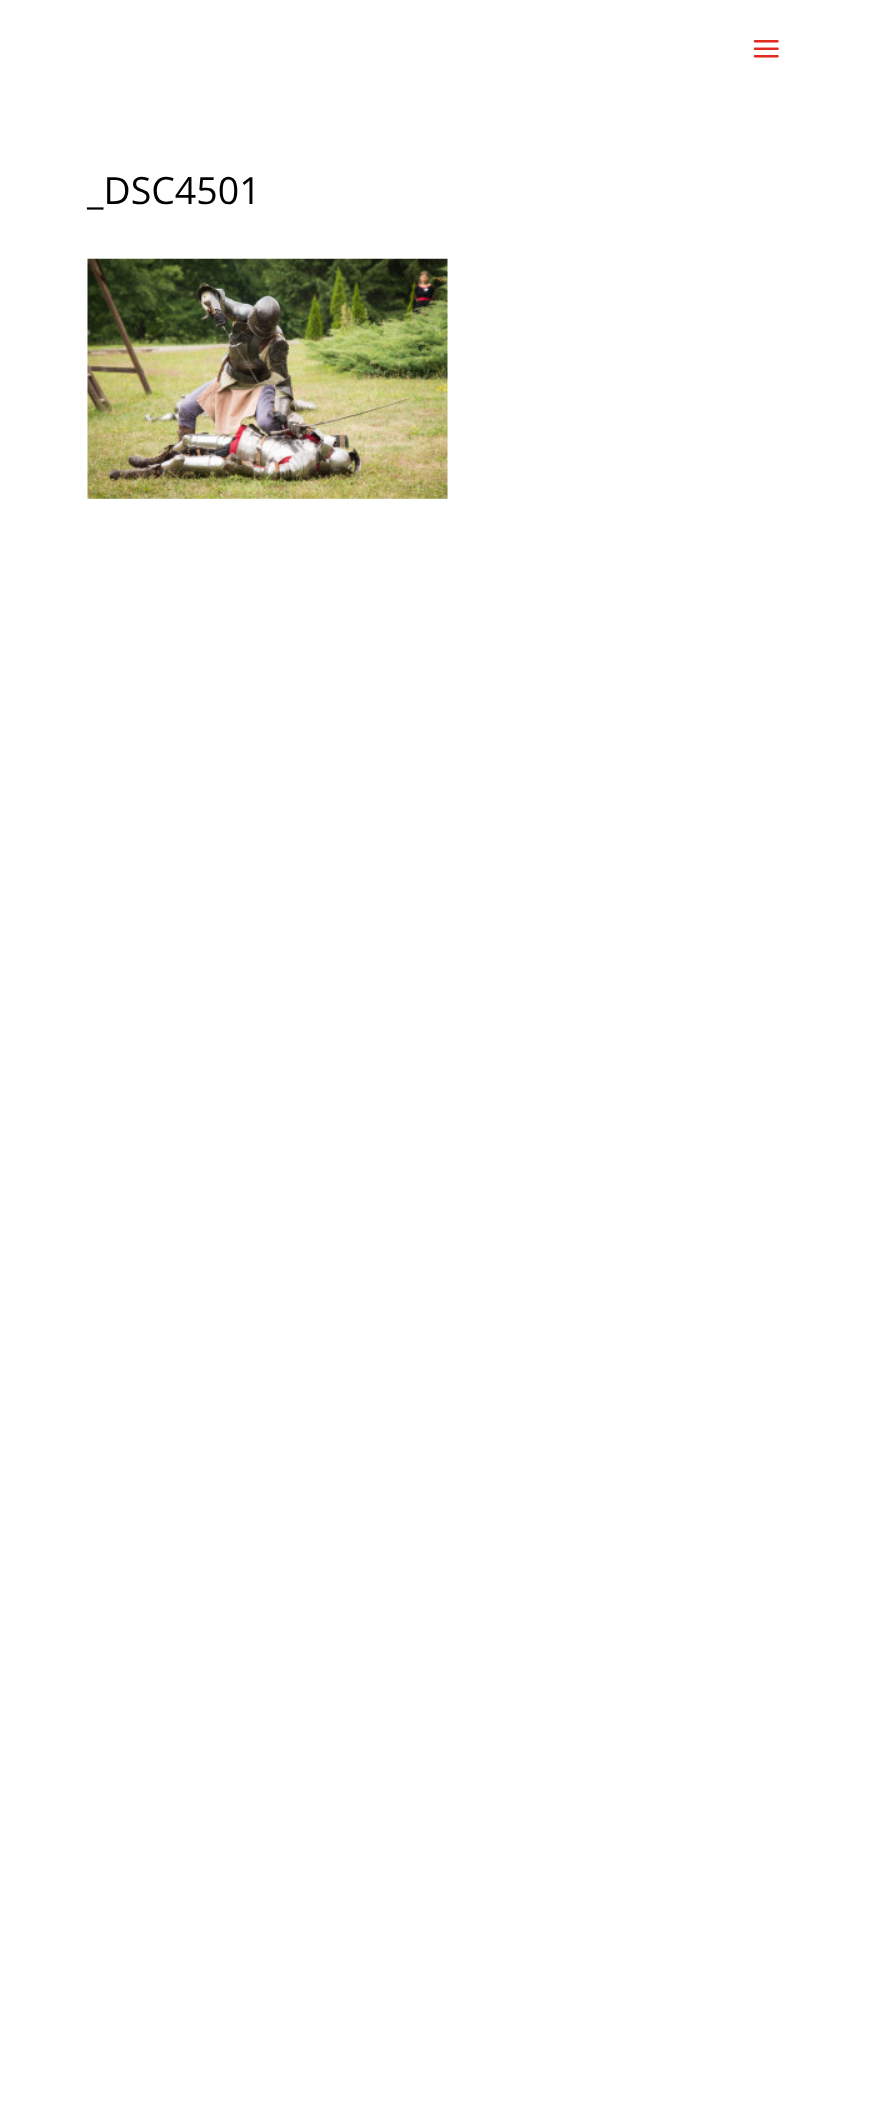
async function draw(canvas) {
  canvas.width = 873;
  canvas.height = 2109;
  const ctx = canvas.getContext('2d');
  ctx.miterLimit = 4;
  ctx.fontKerning = 'normal';
  function label(s, x, y, font, color) {
    ctx.font = font;
    ctx.fillStyle = color;
    ctx.fillText(s, x, y);
  }
  function rect(x, y, w, h, color) {
    ctx.fillStyle = color;
    ctx.fillRect(x, y, w, h);
  }
  async function image(src, x, y, w, h) {
    const img = new Image();
    img.src = src;
    await img.decode();
    ctx.drawImage(img, x, y, w, h);
  }

  rect(0, 0, 873, 2109, '#fff');
  await image('assets/img1.png', 753, 40, 26, 18);
  label('_DSC4501', 87, 204, '37.5px Open Sans', '#000');
  await image('assets/img2.png', 87, 258, 361, 241);
}

draw(document.querySelector('canvas'));
